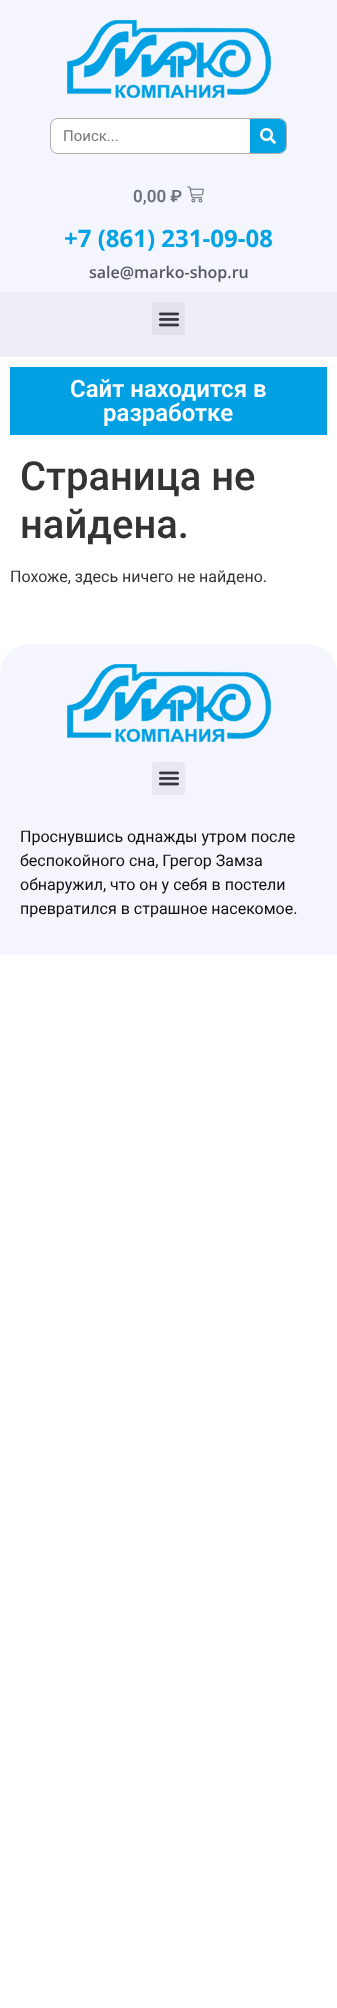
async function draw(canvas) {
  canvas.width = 337;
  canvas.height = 2008;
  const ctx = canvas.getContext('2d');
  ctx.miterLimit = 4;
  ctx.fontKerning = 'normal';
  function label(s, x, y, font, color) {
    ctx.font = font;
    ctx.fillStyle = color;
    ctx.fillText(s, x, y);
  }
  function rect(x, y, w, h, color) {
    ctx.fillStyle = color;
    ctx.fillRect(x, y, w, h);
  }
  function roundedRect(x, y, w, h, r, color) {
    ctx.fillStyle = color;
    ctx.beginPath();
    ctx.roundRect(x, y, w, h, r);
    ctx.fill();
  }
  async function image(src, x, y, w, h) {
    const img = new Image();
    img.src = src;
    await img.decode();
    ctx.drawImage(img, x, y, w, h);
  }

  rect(0, 0, 337, 2008, '#fff');
  rect(0, 0, 337, 292, '#f4f5fd');
  await image('assets/img1.png', 67, 20, 204, 78);
  ctx.fillStyle = '#fff';
  ctx.beginPath();
  ctx.roundRect(50.5, 118.5, 236, 35, 7.5);
  ctx.fill();
  ctx.strokeStyle = '#adadad';
  ctx.stroke();
  label('Поиск...', 63, 141, '15px Roboto', '#797979');
  ctx.fillStyle = '#04a4e4';
  ctx.beginPath();
  ctx.roundRect(250, 119, 36, 34, [0, 7, 7, 0]);
  ctx.fill();
  await image('assets/img2.png', 260, 128, 16, 16);
  label('0,00 ₽', 133, 202, '600 17px Roboto', '#69727d');
  await image('assets/img3.png', 187, 186, 17, 17);
  label('+7 (861) 231-09-08', 64, 247, 'bold 24px Open Sans', '#04a4e4');
  label('sale@marko-shop.ru', 89, 278, '600 16px Open Sans', '#54595f');
  rect(0, 292, 337, 65, '#edeef8');
  roundedRect(152, 302, 33, 33, 3, '#e1e2ec');
  await image('assets/img4.png', 158, 312, 22, 15);
  rect(10, 367, 317, 68, '#00a0e3');
  label('Сайт находится в', 70, 397, '600 24px Roboto', '#fff');
  label('разработке', 103, 421, '600 24px Roboto', '#fff');
  label('Страница не', 20, 490, '500 40px Roboto', '#333');
  label('найдена.', 20, 538, '500 40px Roboto', '#333');
  label('Похоже, здесь ничего не найдено.', 10, 582, '16px Roboto', '#333');
  ctx.fillStyle = '#f4f5fd';
  ctx.beginPath();
  ctx.roundRect(0, 644, 337, 311, [30, 30, 0, 0]);
  ctx.fill();
  await image('assets/img1.png', 67, 664, 204, 78);
  roundedRect(152, 762, 33, 33, 3, '#e8e9f0');
  await image('assets/img5.png', 158, 771, 22, 15);
  label('Проснувшись однажды утром после', 20, 842, '16px Roboto', '#101010');
  label('беспокойного сна, Грегор Замза', 20, 866, '16px Roboto', '#101010');
  label('обнаружил, что он у себя в постели', 20, 890, '16px Roboto', '#101010');
  label('превратился в страшное насекомое.', 20, 914, '16px Roboto', '#101010');
}

draw(document.querySelector('canvas'));
